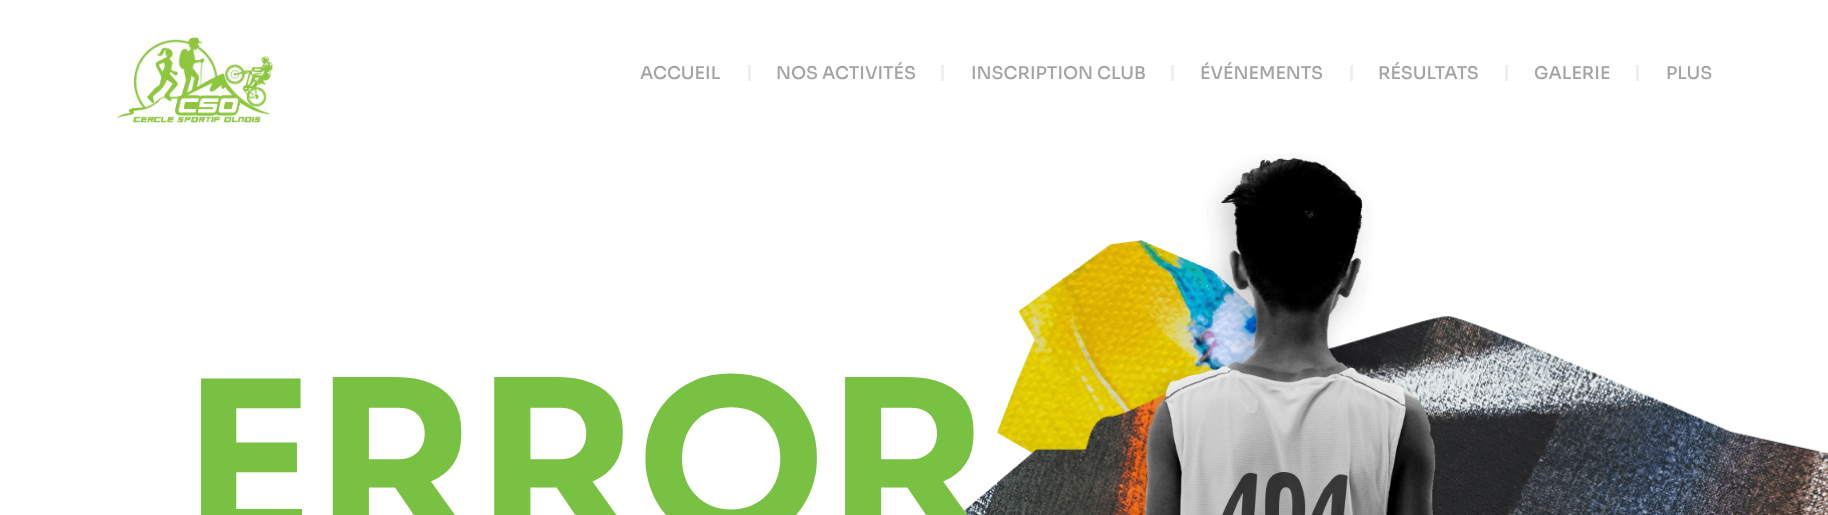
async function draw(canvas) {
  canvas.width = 1828;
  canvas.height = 515;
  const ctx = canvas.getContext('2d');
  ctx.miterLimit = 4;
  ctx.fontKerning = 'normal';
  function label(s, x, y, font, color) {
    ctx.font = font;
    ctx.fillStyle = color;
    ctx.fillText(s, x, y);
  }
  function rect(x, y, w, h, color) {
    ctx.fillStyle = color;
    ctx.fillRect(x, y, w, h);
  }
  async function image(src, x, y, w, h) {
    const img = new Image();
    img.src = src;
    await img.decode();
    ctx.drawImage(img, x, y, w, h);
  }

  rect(0, 0, 1828, 515, '#fff');
  await image('assets/img1.png', 117, 37, 156, 86);
  label('ACCUEIL', 640, 79, '500 17.5px Sora', '#a4a4a4');
  rect(748, 65, 3, 16, '#efefef');
  label('NOS ACTIVITÉS', 776, 79, '500 17.5px Sora', '#a4a4a4');
  rect(941, 65, 3, 16, '#efefef');
  label('INSCRIPTION CLUB', 971, 79, '500 17.5px Sora', '#a4a4a4');
  rect(1171, 65, 3, 16, '#efefef');
  label('ÉVÉNEMENTS', 1200, 79, '500 17.5px Sora', '#a4a4a4');
  rect(1350, 65, 3, 16, '#efefef');
  label('RÉSULTATS', 1378, 79, '500 17.5px Sora', '#a4a4a4');
  rect(1505, 65, 3, 16, '#efefef');
  label('GALERIE', 1534, 79, '500 17.5px Sora', '#a4a4a4');
  rect(1636, 65, 3, 16, '#efefef');
  label('PLUS', 1666, 79, '500 17.5px Sora', '#a4a4a4');
  await image('assets/img3.png', 960, 240, 868, 275);
  ctx.letterSpacing = '1px';
  label('ERROR', 183, 539, 'bold 220px Sora', '#79c143');
  await image('assets/img2.png', 1122, 154, 314, 361);
}

draw(document.querySelector('canvas'));
